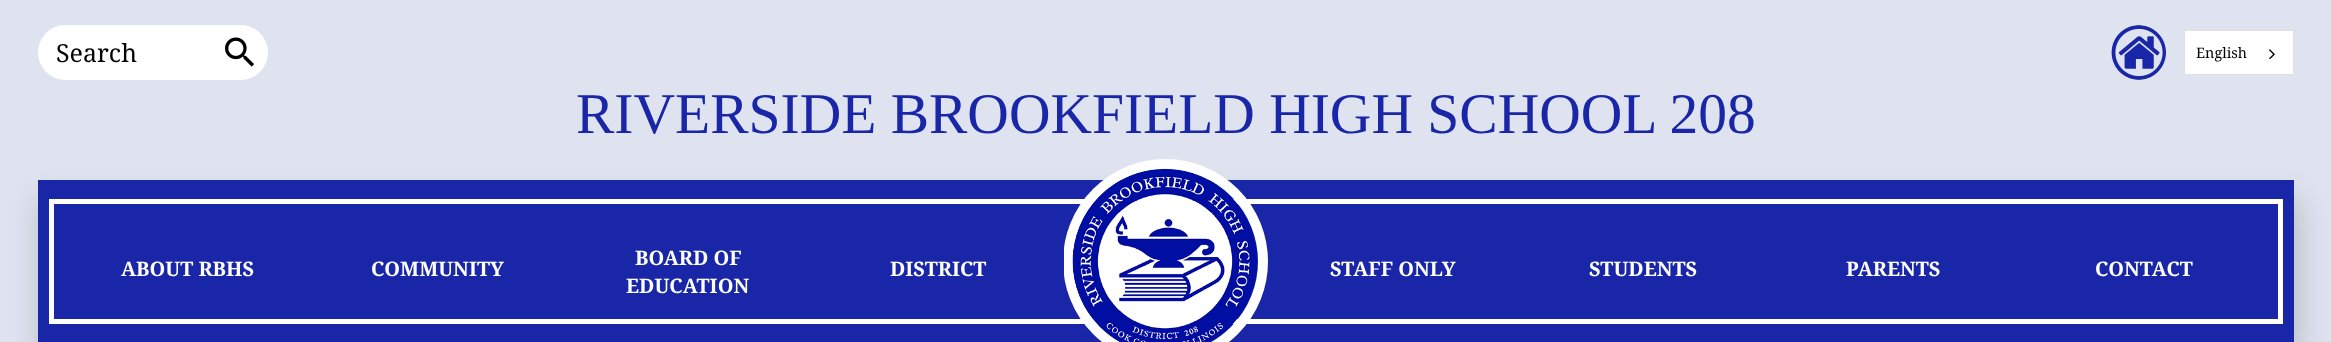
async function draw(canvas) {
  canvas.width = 2331;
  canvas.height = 342;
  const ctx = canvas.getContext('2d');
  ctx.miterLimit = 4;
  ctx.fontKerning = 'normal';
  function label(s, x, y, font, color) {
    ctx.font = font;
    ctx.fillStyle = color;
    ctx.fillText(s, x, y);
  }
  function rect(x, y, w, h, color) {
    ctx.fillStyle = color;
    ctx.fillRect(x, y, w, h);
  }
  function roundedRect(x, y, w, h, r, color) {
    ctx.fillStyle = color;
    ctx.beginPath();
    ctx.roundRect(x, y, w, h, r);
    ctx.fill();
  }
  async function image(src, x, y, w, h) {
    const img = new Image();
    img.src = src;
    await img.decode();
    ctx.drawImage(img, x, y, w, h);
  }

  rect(0, 0, 2331, 342, '#dfe3ef');
  roundedRect(38, 25, 230, 55, 27.5, '#fff');
  label('Search', 56, 62, '25px Noto Serif Georgian', '#000');
  await image('assets/img1.png', 225, 37, 29, 30);
  await image('assets/img2.png', 2111, 25, 55, 55);
  ctx.fillStyle = '#fff';
  ctx.beginPath();
  ctx.rect(2184.5, 30.5, 109, 44);
  ctx.fill();
  ctx.strokeStyle = '#e0e0e0';
  ctx.stroke();
  label('English', 2196, 58, '14.5px Noto Serif Georgian', '#000');
  await image('assets/img3.png', 2269, 49, 6, 10);
  label('RIVERSIDE BROOKFIELD HIGH SCHOOL 208', 576, 133, '57.5px Liberation Serif', '#1926a8');
  ctx.fillStyle = '#0000002e';
  ctx.filter = 'blur(15.5px)';
  ctx.beginPath();
  ctx.rect(41, 199, 2257, 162);
  ctx.fill();
  ctx.filter = 'none';
  rect(38, 180, 2256, 162, '#1926a8');
  ctx.strokeStyle = '#fff';
  ctx.lineWidth = 5;
  ctx.strokeRect(51.5, 201.5, 2229, 120);
  ctx.beginPath();
  ctx.arc(1165.5, 261.5, 97.5, 0, 2 * Math.PI);
  ctx.lineWidth = 10;
  ctx.stroke();
  await image('assets/img4.png', 1072, 168, 186, 174);
  label('ABOUT RBHS', 121, 276, 'bold 20px Noto Serif Georgian', '#fff');
  label('COMMUNITY', 371, 276, 'bold 20px Noto Serif Georgian', '#fff');
  label('BOARD OF', 635, 265, 'bold 20px Noto Serif Georgian', '#fff');
  label('EDUCATION', 626, 293, 'bold 20px Noto Serif Georgian', '#fff');
  rect(1063, 247, 1, 29, '#1926a8');
  label('DISTRICT', 890, 276, 'bold 20px Noto Serif Georgian', '#fff');
  label('STAFF ONLY', 1330, 276, 'bold 20px Noto Serif Georgian', '#fff');
  label('STUDENTS', 1589, 276, 'bold 20px Noto Serif Georgian', '#fff');
  label('PARENTS', 1846, 276, 'bold 20px Noto Serif Georgian', '#fff');
  label('CONTACT', 2095, 276, 'bold 20px Noto Serif Georgian', '#fff');
}

draw(document.querySelector('canvas'));
